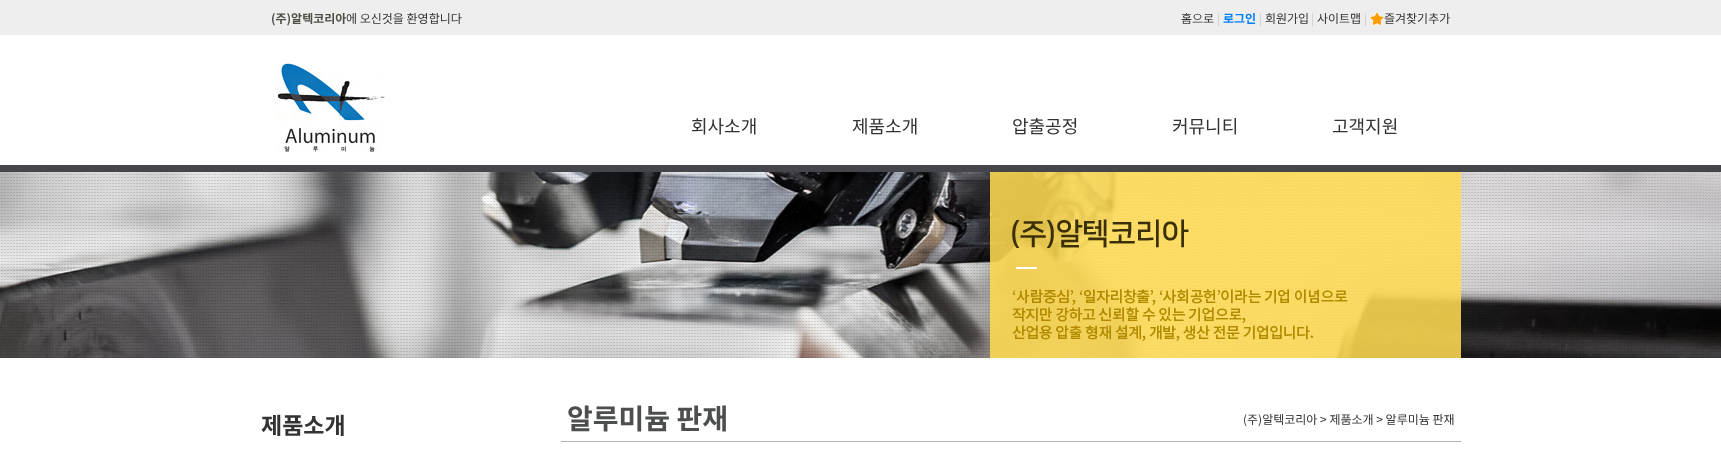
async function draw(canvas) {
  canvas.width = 1721;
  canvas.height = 450;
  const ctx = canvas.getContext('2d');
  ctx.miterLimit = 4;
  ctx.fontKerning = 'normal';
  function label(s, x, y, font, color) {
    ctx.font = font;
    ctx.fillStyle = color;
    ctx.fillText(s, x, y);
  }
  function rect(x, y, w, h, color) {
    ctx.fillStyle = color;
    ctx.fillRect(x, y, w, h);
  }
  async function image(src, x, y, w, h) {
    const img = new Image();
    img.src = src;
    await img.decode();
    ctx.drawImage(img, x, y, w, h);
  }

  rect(0, 0, 1721, 450, '#fff');
  rect(0, 0, 1721, 35, '#eee');
  label('(주)알텍코리아', 271, 23, 'bold 12px Noto Sans KR', '#4f4f45');
  label('에 오신것을 환영합니다', 346, 23, '12px Noto Sans KR', '#333');
  label('홈으로', 1181, 23, '12px Noto Sans KR', '#333');
  label('|', 1217, 23, '12px Noto Sans KR', '#ccc');
  label('로그인', 1223, 23, 'bold 12px Noto Sans KR', '#0080ff');
  label('|', 1259, 23, '12px Noto Sans KR', '#ccc');
  label('회원가입', 1265, 23, '12px Noto Sans KR', '#333');
  label('|', 1311, 23, '12px Noto Sans KR', '#ccc');
  label('사이트맵', 1317, 23, '12px Noto Sans KR', '#333');
  label('|', 1364, 23, '12px Noto Sans KR', '#ccc');
  await image('assets/img1.png', 1370, 12, 14, 14);
  label('즐겨찾기추가', 1384, 23, '12px Noto Sans KR', '#333');
  rect(0, 165, 1721, 7, '#44464b');
  await image('assets/img2.png', 277, 63, 108, 89);
  label('회사소개', 691, 133, '18px Noto Sans KR', '#333');
  label('제품소개', 852, 133, '18px Noto Sans KR', '#333');
  label('압출공정', 1012, 133, '18px Noto Sans KR', '#333');
  label('커뮤니티', 1172, 133, '18px Noto Sans KR', '#333');
  label('고객지원', 1332, 133, '18px Noto Sans KR', '#333');
  await image('assets/img3.png', 0, 172, 1721, 186);
  await image('assets/img4.png', 990, 172, 471, 186);
  label('제품소개', 261, 434, 'bold 23px Noto Sans KR', '#333');
  rect(561, 441, 900, 1, '#afafb0');
  label('알루미늄 판재', 567, 429, 'bold 28px Noto Sans KR', '#4d4e4f');
  label('(주)알텍코리아 > 제품소개 > 알루미늄 판재', 1243, 424, '12px Noto Sans KR', '#333');
}

draw(document.querySelector('canvas'));
